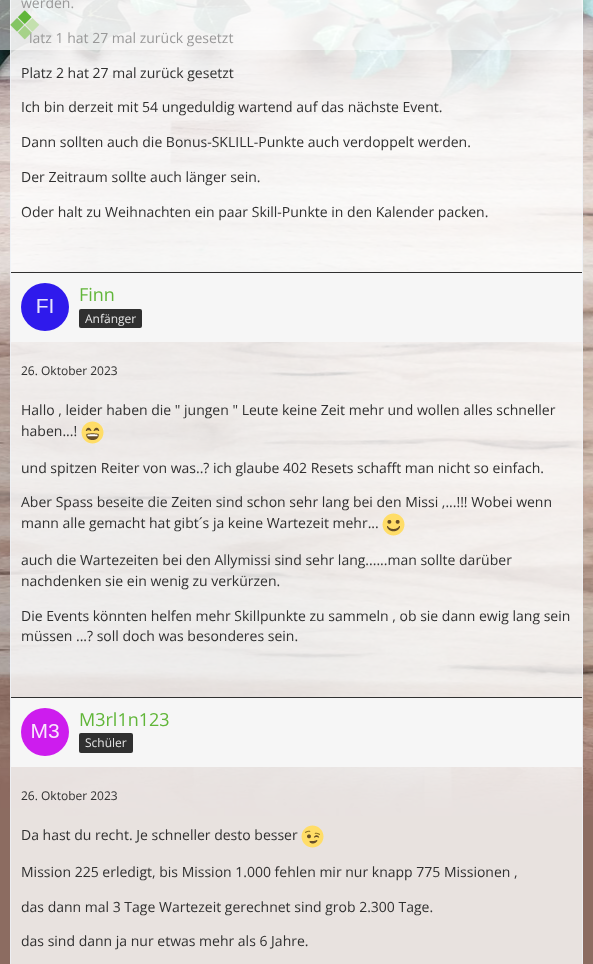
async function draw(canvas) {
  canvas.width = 593;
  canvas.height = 964;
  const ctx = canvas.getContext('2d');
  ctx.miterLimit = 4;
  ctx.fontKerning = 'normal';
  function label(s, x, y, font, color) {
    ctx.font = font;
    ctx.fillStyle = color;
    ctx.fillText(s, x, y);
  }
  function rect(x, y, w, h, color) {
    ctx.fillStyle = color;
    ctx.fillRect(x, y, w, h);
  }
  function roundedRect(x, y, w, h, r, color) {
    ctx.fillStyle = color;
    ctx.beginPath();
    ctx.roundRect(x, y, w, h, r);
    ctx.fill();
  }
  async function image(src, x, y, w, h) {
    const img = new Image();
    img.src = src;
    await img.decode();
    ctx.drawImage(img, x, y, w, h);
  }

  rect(0, 0, 593, 964, '#8c6c61');
  rect(10, 816, 573, 148, '#e8e2df');
  await image('assets/img1.png', 0, 0, 593, 816);
  ctx.strokeStyle = '#ecf1f7cc';
  ctx.strokeRect(10.5, -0.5, 572, 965);
  label('werden.', 21, 8, '14px Open Sans', '#303030');
  label('latz 1 hat 27 mal zurück gesetzt', 29, 43, '14px Open Sans', '#303030');
  rect(0, 0, 593, 50, '#ffffff80');
  await image('assets/img2.png', 10, 10, 29, 30);
  label('Platz 2 hat 27 mal zurück gesetzt', 21, 78, '14px Open Sans', '#303030');
  label('Ich bin derzeit mit 54 ungeduldig wartend auf das nächste Event.', 21, 112, '14px Open Sans', '#303030');
  label('Dann sollten auch die Bonus-SKLILL-Punkte auch verdoppelt werden.', 21, 147, '14px Open Sans', '#303030');
  label('Der Zeitraum sollte auch länger sein.', 21, 182, '14px Open Sans', '#303030');
  label('Oder halt zu Weihnachten ein paar Skill-Punkte in den Kalender packen.', 21, 217, '14px Open Sans', '#303030');
  rect(11, 273, 571, 69, '#f6f6f6');
  rect(11, 272, 571, 1, '#303030');
  await image('assets/img3.png', 21, 283, 48, 48);
  label('Finn', 79, 301, '18px Open Sans', '#61b639');
  roundedRect(79, 309, 63, 19, 2, '#303030');
  label('Anfänger', 85, 323, '12px Open Sans', '#e6e6e6');
  label('26. Oktober 2023', 21, 375, '12px Open Sans', '#303030');
  label('Hallo , leider haben die " jungen " Leute keine Zeit mehr und wollen alles schneller', 21, 415, '14px Open Sans', '#303030');
  label('haben...!', 21, 436, '14px Open Sans', '#303030');
  await image('assets/img4.png', 81, 421, 23, 23);
  label('und spitzen Reiter von was..? ich glaube 402 Resets schafft man nicht so einfach.', 21, 473, '14px Open Sans', '#303030');
  label('Aber Spass beseite die Zeiten sind schon sehr lang bei den Missi ,...!!! Wobei wenn', 21, 507, '14px Open Sans', '#303030');
  label('mann alle gemacht hat gibt´s ja keine Wartezeit mehr...', 21, 528, '14px Open Sans', '#303030');
  await image('assets/img5.png', 382, 513, 23, 23);
  label('auch die Wartezeiten bei den Allymissi sind sehr lang......man sollte darüber', 21, 565, '14px Open Sans', '#303030');
  label('nachdenken sie ein wenig zu verkürzen.', 21, 586, '14px Open Sans', '#303030');
  label('Die Events könnten helfen mehr Skillpunkte zu sammeln , ob sie dann ewig lang sein', 21, 621, '14px Open Sans', '#303030');
  label('müssen ...? soll doch was besonderes sein.', 21, 641, '14px Open Sans', '#303030');
  rect(11, 698, 571, 69, '#f6f6f6');
  rect(11, 697, 571, 1, '#303030');
  await image('assets/img6.png', 21, 708, 48, 48);
  label('M3rl1n123', 79, 726, '18px Open Sans', '#61b639');
  roundedRect(79, 733, 54, 20, 2, '#303030');
  label('Schüler', 85, 747, '12px Open Sans', '#e6e6e6');
  label('26. Oktober 2023', 21, 800, '12px Open Sans', '#303030');
  label('Da hast du recht. Je schneller desto besser', 21, 840, '14px Open Sans', '#303030');
  await image('assets/img7.png', 301, 825, 23, 23);
  label('Mission 225 erledigt, bis Mission 1.000 fehlen mir nur knapp 775 Missionen ,', 21, 877, '14px Open Sans', '#303030');
  label('das dann mal 3 Tage Wartezeit gerechnet sind grob 2.300 Tage.', 21, 912, '14px Open Sans', '#303030');
  label('das sind dann ja nur etwas mehr als 6 Jahre.', 21, 946, '14px Open Sans', '#303030');
}

draw(document.querySelector('canvas'));
